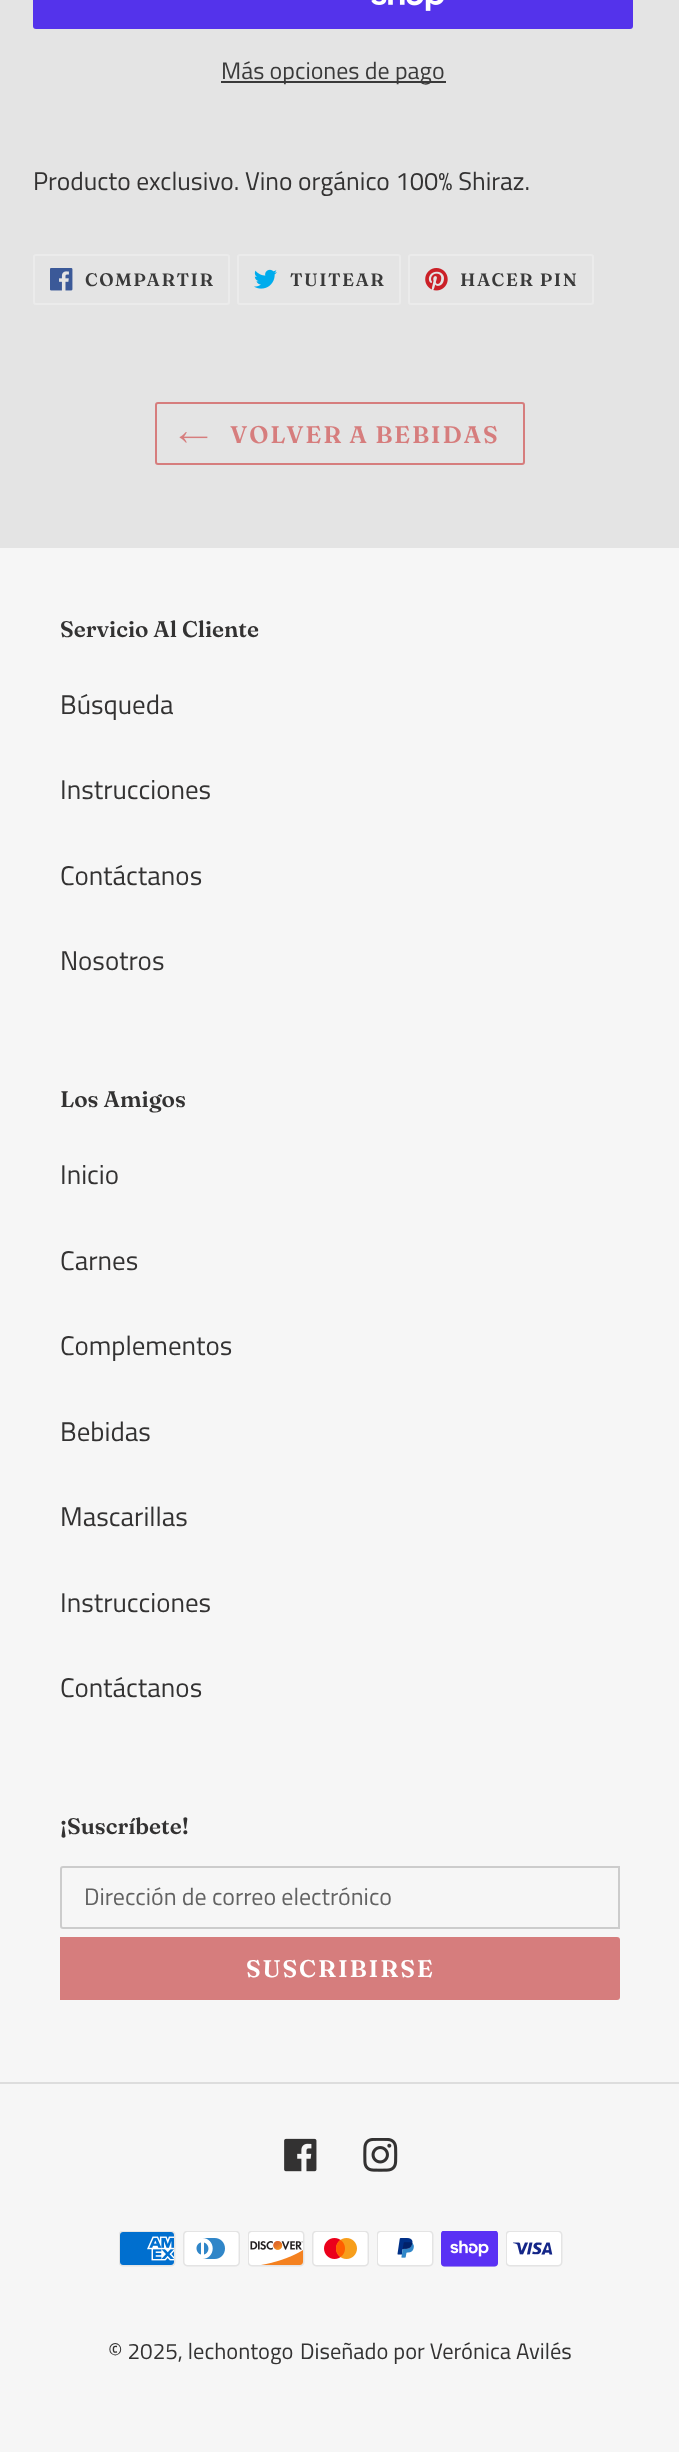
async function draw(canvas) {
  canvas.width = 679;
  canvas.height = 2452;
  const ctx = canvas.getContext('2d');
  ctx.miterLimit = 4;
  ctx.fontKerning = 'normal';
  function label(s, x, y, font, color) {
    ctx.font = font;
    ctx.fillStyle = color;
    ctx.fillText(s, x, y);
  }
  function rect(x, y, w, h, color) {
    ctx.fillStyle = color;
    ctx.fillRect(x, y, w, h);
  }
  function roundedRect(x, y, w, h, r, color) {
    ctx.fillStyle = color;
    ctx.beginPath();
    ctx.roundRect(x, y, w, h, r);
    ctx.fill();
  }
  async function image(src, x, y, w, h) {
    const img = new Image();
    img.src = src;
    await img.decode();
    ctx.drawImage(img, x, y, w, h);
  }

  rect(0, 0, 679, 2452, '#e4e4e4');
  roundedRect(33, -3, 600, 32, 3, '#5433eb');
  await image('assets/img1.png', 371, 0, 73, 11);
  rect(221, 81, 225, 2, '#3a3a3a');
  label('Más opciones de pago', 221, 79, '24px Titillium Web', '#3a3a3a');
  label('Producto exclusivo. Vino orgánico 100% Shiraz.', 33, 190, '25.5px Titillium Web', '#333232');
  ctx.beginPath();
  ctx.roundRect(34, 255, 195, 49, 2);
  ctx.strokeStyle = '#ebebeb';
  ctx.lineWidth = 2;
  ctx.stroke();
  await image('assets/img2.png', 50, 268, 23, 23);
  ctx.letterSpacing = '1.5px';
  label('COMPARTIR', 85, 286, '600 18px Fraunces', '#3a3a3a');
  ctx.beginPath();
  ctx.roundRect(238, 255, 162, 49, 2);
  ctx.stroke();
  await image('assets/img3.png', 254, 269, 23, 20);
  label('TUITEAR', 290, 286, '600 18px Fraunces', '#3a3a3a');
  ctx.beginPath();
  ctx.roundRect(409, 255, 184, 49, 2);
  ctx.stroke();
  await image('assets/img4.png', 425, 268, 23, 23);
  label('HACER PIN', 460, 286, '600 18px Fraunces', '#3a3a3a');
  ctx.beginPath();
  ctx.roundRect(156, 403, 368, 61, 2);
  ctx.strokeStyle = '#d67d7d';
  ctx.stroke();
  await image('assets/img5.png', 179, 432, 29, 11);
  ctx.letterSpacing = '1.9px';
  ctx.wordSpacing = '-1px';
  label('VOLVER A BEBIDAS', 230, 443, '600 24px Fraunces', '#d67d7d');
  rect(0, 548, 679, 1904, '#f6f6f6');
  ctx.letterSpacing = '0px';
  ctx.wordSpacing = '0px';
  label('Servicio Al Cliente', 60, 637, '600 22.5px "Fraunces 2"', '#333232');
  label('Búsqueda', 60, 714, '27px Titillium Web', '#333232');
  label('Instrucciones', 60, 799, '27px Titillium Web', '#333232');
  label('Contáctanos', 60, 885, '27px Titillium Web', '#333232');
  label('Nosotros', 60, 970, '27px Titillium Web', '#333232');
  label('Los Amigos', 60, 1107, '600 22.5px "Fraunces 2"', '#333232');
  label('Inicio', 60, 1184, '27px Titillium Web', '#333232');
  label('Carnes', 60, 1270, '27px Titillium Web', '#333232');
  label('Complementos', 60, 1355, '27px Titillium Web', '#333232');
  label('Bebidas', 60, 1441, '27px Titillium Web', '#333232');
  label('Mascarillas', 60, 1526, '27px Titillium Web', '#333232');
  label('Instrucciones', 60, 1612, '27px Titillium Web', '#333232');
  label('Contáctanos', 60, 1697, '27px Titillium Web', '#333232');
  label('¡Suscríbete!', 60, 1834, '600 22.5px "Fraunces 2"', '#333232');
  ctx.beginPath();
  ctx.roundRect(61, 1867, 558, 61, [2, 0, 0, 2]);
  ctx.strokeStyle = '#ccc';
  ctx.stroke();
  label('Dirección de correo electrónico', 84, 1905, '24px Titillium Web', '#626262');
  ctx.fillStyle = '#d67d7d';
  ctx.beginPath();
  ctx.roundRect(60, 1937, 560, 63, [0, 3, 3, 0]);
  ctx.fill();
  ctx.letterSpacing = '1.9px';
  label('SUSCRIBIRSE', 246, 1977, '600 24px Fraunces', '#fff');
  rect(0, 2082, 679, 2, '#ddd');
  await image('assets/img6.png', 284, 2138, 33, 34);
  await image('assets/img7.png', 363, 2138, 35, 34);
  await image('assets/img8.png', 119, 2231, 57, 36);
  await image('assets/img9.png', 183, 2231, 57, 36);
  await image('assets/img10.png', 248, 2231, 57, 36);
  await image('assets/img11.png', 312, 2231, 57, 36);
  await image('assets/img12.png', 377, 2231, 57, 36);
  await image('assets/img13.png', 441, 2231, 57, 36);
  await image('assets/img14.png', 506, 2231, 57, 36);
  ctx.letterSpacing = '0px';
  label('© 2025, lechontogo', 108, 2359, '22.5px Titillium Web', '#333232');
  label('Diseñado por Verónica Avilés', 300, 2359, '22.5px Titillium Web', '#333232');
}

draw(document.querySelector('canvas'));
